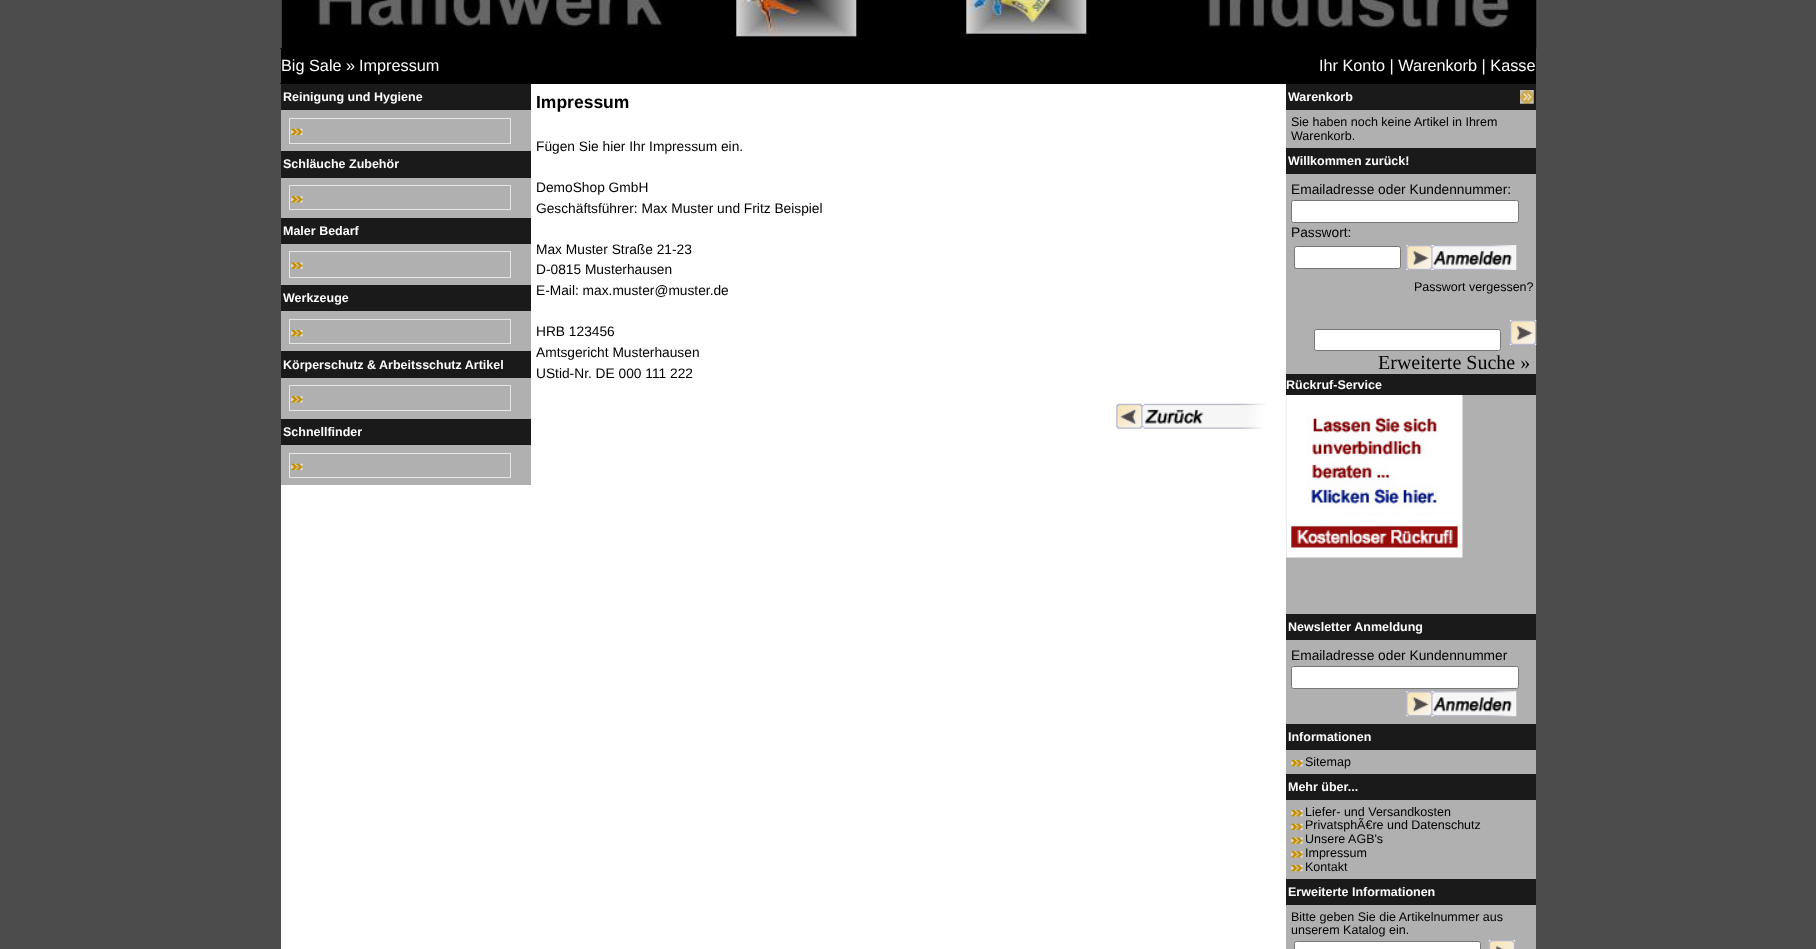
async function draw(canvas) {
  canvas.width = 1816;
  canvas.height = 949;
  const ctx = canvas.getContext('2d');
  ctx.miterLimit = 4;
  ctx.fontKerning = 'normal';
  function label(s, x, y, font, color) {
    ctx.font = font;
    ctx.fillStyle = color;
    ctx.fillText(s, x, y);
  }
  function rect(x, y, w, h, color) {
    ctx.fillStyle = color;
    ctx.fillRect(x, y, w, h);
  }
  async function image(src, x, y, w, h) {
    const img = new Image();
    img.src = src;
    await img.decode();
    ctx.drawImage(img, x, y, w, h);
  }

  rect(0, 0, 1816, 949, '#4c4c4c');
  rect(281, 0, 1005, 949, '#fff');
  await image('assets/img1.png', 281, 0, 1256, 49);
  rect(281, 49, 925, 34, '#000');
  rect(280, 83, 926, 1, '#000');
  label('Big Sale', 281, 71, '16.25px Liberation Sans', '#fcfcfc');
  label('»', 346, 71, '16.25px Liberation Sans', '#fcfcfc');
  label('Impressum', 359, 71, '16.25px Liberation Sans', '#fcfcfc');
  rect(1206, 49, 330, 35, '#000');
  rect(280, 48, 1256, 1, '#000');
  label('Ihr Konto | Warenkorb | Kasse', 1319, 71, '16.25px Liberation Sans', '#fcfcfc');
  rect(281, 84, 250, 26, '#1a1a1a');
  label('Reinigung und Hygiene', 283, 101, 'bold 12.5px Liberation Sans', '#fcfcfc');
  rect(281, 110, 250, 41, '#b0b0b0');
  ctx.strokeStyle = '#e6e6e6';
  ctx.strokeRect(289.5, 118.5, 221, 25);
  await image('assets/img2.png', 291, 128, 12, 7);
  rect(281, 151, 250, 27, '#1a1a1a');
  label('Schläuche Zubehör', 283, 168, 'bold 12.5px Liberation Sans', '#fcfcfc');
  rect(281, 178, 250, 40, '#b0b0b0');
  ctx.strokeRect(289.5, 185.5, 221, 24);
  await image('assets/img3.png', 291, 196, 12, 7);
  rect(281, 218, 250, 26, '#1a1a1a');
  label('Maler Bedarf', 283, 235, 'bold 12.5px Liberation Sans', '#fcfcfc');
  rect(281, 244, 250, 41, '#b0b0b0');
  ctx.strokeRect(289.5, 251.5, 221, 26);
  await image('assets/img4.png', 291, 262, 12, 7);
  rect(281, 285, 250, 26, '#1a1a1a');
  label('Werkzeuge', 283, 302, 'bold 12.5px Liberation Sans', '#fcfcfc');
  rect(281, 311, 250, 40, '#b0b0b0');
  ctx.strokeRect(289.5, 319.5, 221, 24);
  await image('assets/img5.png', 291, 330, 12, 7);
  rect(281, 351, 250, 27, '#1a1a1a');
  label('Körperschutz & Arbeitsschutz Artikel', 283, 369, 'bold 12.5px Liberation Sans', '#fcfcfc');
  rect(281, 378, 250, 41, '#b0b0b0');
  ctx.strokeRect(289.5, 385.5, 221, 25);
  await image('assets/img3.png', 291, 396, 12, 7);
  rect(281, 419, 250, 26, '#1a1a1a');
  label('Schnellfinder', 283, 436, 'bold 12.5px Liberation Sans', '#fcfcfc');
  rect(281, 445, 250, 40, '#b0b0b0');
  ctx.strokeRect(289.5, 453.5, 221, 24);
  await image('assets/img2.png', 291, 463, 12, 7);
  label('Impressum', 536, 108, 'bold 17.5px Liberation Sans', '#000');
  label('Fügen Sie hier Ihr Impressum ein.', 536, 151, '13.75px Liberation Sans', '#000');
  label('DemoShop GmbH', 536, 192, '13.75px Liberation Sans', '#000');
  label('Geschäftsführer: Max Muster und Fritz Beispiel', 536, 213, '13.75px Liberation Sans', '#000');
  label('Max Muster Straße 21-23', 536, 254, '13.75px Liberation Sans', '#000');
  label('D-0815 Musterhausen', 536, 274, '13.75px Liberation Sans', '#000');
  label('E-Mail: max.muster@muster.de', 536, 295, '13.75px Liberation Sans', '#000');
  label('HRB 123456', 536, 336, '13.75px Liberation Sans', '#000');
  label('Amtsgericht Musterhausen', 536, 357, '13.75px Liberation Sans', '#000');
  label('UStid-Nr. DE 000 111 222', 536, 378, '13.75px Liberation Sans', '#000');
  await image('assets/img6.png', 1116, 403, 150, 26);
  rect(1286, 110, 250, 839, '#b0b0b0');
  rect(1286, 84, 250, 26, '#1a1a1a');
  label('Warenkorb', 1288, 101, 'bold 12.5px Liberation Sans', '#fcfcfc');
  await image('assets/img7.png', 1520, 90, 14, 14);
  label('Sie haben noch keine Artikel in Ihrem', 1291, 126, '12.5px Liberation Sans', '#000');
  label('Warenkorb.', 1291, 140, '12.5px Liberation Sans', '#000');
  rect(1286, 148, 250, 26, '#1a1a1a');
  label('Willkommen zurück!', 1288, 165, 'bold 12.5px Liberation Sans', '#fcfcfc');
  label('Emailadresse oder Kundennummer:', 1291, 194, '13.75px Liberation Sans', '#000');
  ctx.fillStyle = '#fff';
  ctx.beginPath();
  ctx.roundRect(1291.5, 200.5, 227, 22, 2);
  ctx.fill();
  ctx.strokeStyle = '#767676';
  ctx.stroke();
  label('Passwort:', 1291, 237, '13.75px Liberation Sans', '#000');
  ctx.fillStyle = '#fff';
  ctx.beginPath();
  ctx.roundRect(1294.5, 246.5, 106, 22, 2);
  ctx.fill();
  ctx.stroke();
  await image('assets/img8.png', 1406, 245, 111, 25);
  label('Passwort vergessen?', 1414, 291, '12.5px Liberation Sans', '#000');
  ctx.fillStyle = '#fff';
  ctx.beginPath();
  ctx.roundRect(1314.5, 329.5, 186, 21, 2);
  ctx.fill();
  ctx.stroke();
  await image('assets/img9.png', 1510, 320, 27, 25);
  label('Erweiterte Suche »', 1378, 369, '20px Liberation Serif', '#000');
  rect(1286, 374, 250, 21, '#1a1a1a');
  label('Rückruf-Service', 1286, 389, 'bold 12.5px Liberation Sans', '#fcfcfc');
  await image('assets/img10.png', 1286, 395, 177, 163);
  rect(1286, 614, 250, 26, '#1a1a1a');
  label('Newsletter Anmeldung', 1288, 631, 'bold 12.5px Liberation Sans', '#fcfcfc');
  label('Emailadresse oder Kundennummer', 1291, 660, '13.75px Liberation Sans', '#000');
  ctx.fillStyle = '#fff';
  ctx.beginPath();
  ctx.roundRect(1291.5, 666.5, 227, 22, 2);
  ctx.fill();
  ctx.stroke();
  await image('assets/img11.png', 1406, 691, 111, 26);
  rect(1286, 724, 250, 26, '#1a1a1a');
  label('Informationen', 1288, 741, 'bold 12.5px Liberation Sans', '#fcfcfc');
  await image('assets/img5.png', 1291, 760, 12, 7);
  label('Sitemap', 1305, 766, '12.5px Liberation Sans', '#000');
  rect(1286, 774, 250, 26, '#1a1a1a');
  label('Mehr über...', 1288, 791, 'bold 12.5px Liberation Sans', '#fcfcfc');
  await image('assets/img5.png', 1291, 810, 12, 7);
  label('Liefer- und Versandkosten', 1305, 816, '12.5px Liberation Sans', '#000');
  await image('assets/img2.png', 1291, 823, 12, 7);
  label('PrivatsphÃ€re und Datenschutz', 1305, 829, '12.5px Liberation Sans', '#000');
  await image('assets/img4.png', 1291, 837, 12, 7);
  label('Unsere AGB\'s', 1305, 843, '12.5px Liberation Sans', '#000');
  await image('assets/img3.png', 1291, 851, 12, 7);
  label('Impressum', 1305, 857, '12.5px Liberation Sans', '#000');
  await image('assets/img5.png', 1291, 865, 12, 7);
  label('Kontakt', 1305, 871, '12.5px Liberation Sans', '#000');
  rect(1286, 879, 250, 26, '#1a1a1a');
  label('Erweiterte Informationen', 1288, 896, 'bold 12.5px Liberation Sans', '#fcfcfc');
  label('Bitte geben Sie die Artikelnummer aus', 1291, 921, '12.5px Liberation Sans', '#000');
  label('unserem Katalog ein.', 1291, 934, '12.5px Liberation Sans', '#000');
  ctx.fillStyle = '#fff';
  ctx.beginPath();
  ctx.roundRect(1294.5, 941.5, 186, 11, 2);
  ctx.fill();
  ctx.stroke();
  await image('assets/img12.png', 1488, 940, 27, 9);
}

draw(document.querySelector('canvas'));
